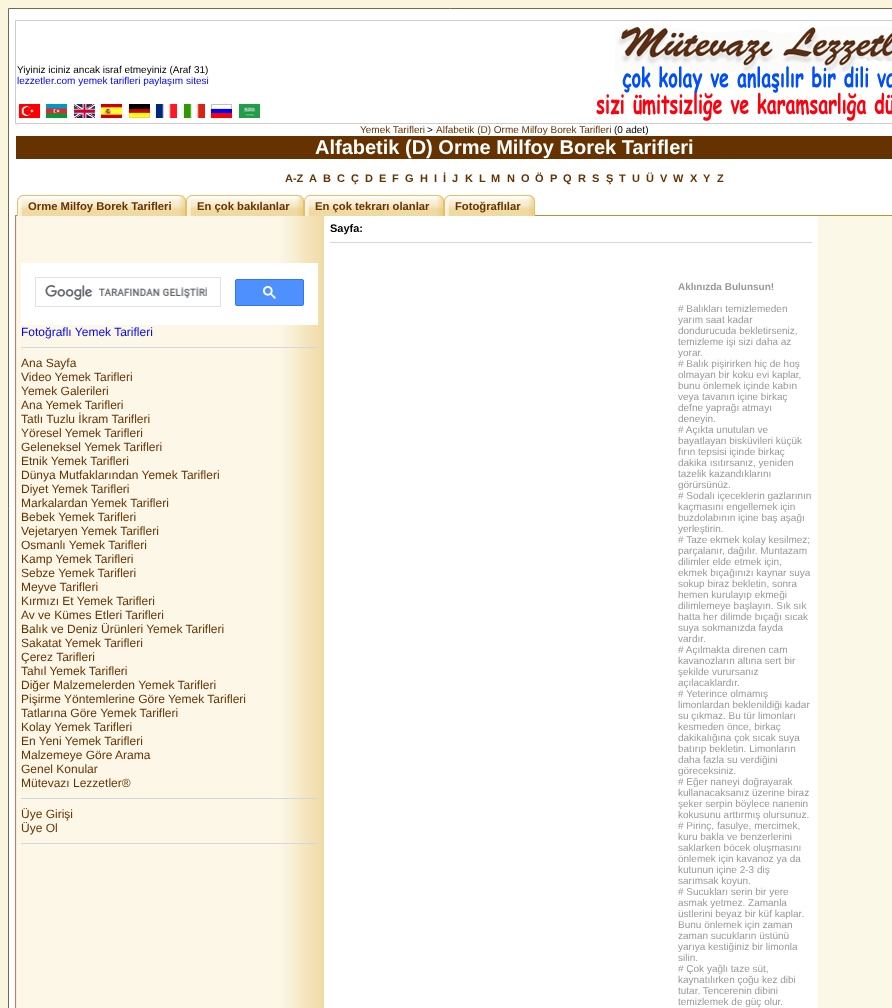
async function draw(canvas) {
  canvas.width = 892;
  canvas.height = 1008;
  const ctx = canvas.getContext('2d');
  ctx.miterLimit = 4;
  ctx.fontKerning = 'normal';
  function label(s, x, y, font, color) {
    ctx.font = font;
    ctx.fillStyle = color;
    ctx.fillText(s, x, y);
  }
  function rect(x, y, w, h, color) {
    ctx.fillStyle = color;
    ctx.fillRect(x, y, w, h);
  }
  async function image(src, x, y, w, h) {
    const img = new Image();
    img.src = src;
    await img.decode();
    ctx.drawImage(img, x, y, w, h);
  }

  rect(0, 0, 892, 1008, '#faf6de');
  ctx.fillStyle = '#fff';
  ctx.beginPath();
  ctx.rect(8.5, 8.5, 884, 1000);
  ctx.fill();
  ctx.strokeStyle = '#796554';
  ctx.stroke();
  rect(15, 20, 877, 1, '#ccc');
  rect(15, 123, 877, 1, '#ccc');
  rect(15, 20, 1, 104, '#ccc');
  label('Yiyiniz iciniz ancak israf etmeyiniz (Araf 31)', 17, 73, '10px Liberation Sans', '#000');
  label('lezzetler.com yemek tarifleri paylaşım sitesi', 17, 84, '10px Liberation Sans', '#00f');
  await image('assets/img1.png', 18, 104, 22, 14);
  await image('assets/img2.png', 45, 104, 22, 14);
  await image('assets/img3.png', 73, 104, 22, 14);
  await image('assets/img4.png', 100, 104, 22, 14);
  await image('assets/img5.png', 128, 104, 22, 14);
  await image('assets/img6.png', 155, 104, 22, 14);
  await image('assets/img7.png', 183, 104, 22, 14);
  await image('assets/img8.png', 210, 104, 22, 14);
  await image('assets/img9.png', 238, 104, 22, 14);
  await image('assets/img10.png', 596, 27, 296, 94);
  label('Yemek Tarifleri', 360, 133, '10px Liberation Sans', '#630');
  label('>', 427, 133, '10px Liberation Sans', '#000');
  label('Alfabetik (D) Orme Milfoy Borek Tarifleri', 436, 133, '10px Liberation Sans', '#630');
  label('(0 adet)', 614, 133, '10px Liberation Sans', '#000');
  rect(16, 136, 876, 23, '#630');
  label('Alfabetik (D) Orme Milfoy Borek Tarifleri', 315, 154, 'bold 20px Liberation Sans', '#fff');
  label('A-Z', 285, 182, 'bold 11px Liberation Sans', '#630');
  label('A', 309, 182, 'bold 11px Liberation Sans', '#630');
  label('B', 323, 182, 'bold 11px Liberation Sans', '#630');
  label('C', 337, 182, 'bold 11px Liberation Sans', '#630');
  label('Ç', 351, 182, 'bold 11px Liberation Sans', '#630');
  label('D', 365, 182, 'bold 11px Liberation Sans', '#630');
  label('E', 379, 182, 'bold 11px Liberation Sans', '#630');
  label('F', 392, 182, 'bold 11px Liberation Sans', '#630');
  label('G', 405, 182, 'bold 11px Liberation Sans', '#630');
  label('H', 420, 182, 'bold 11px Liberation Sans', '#630');
  label('I', 434, 182, 'bold 11px Liberation Sans', '#630');
  label('İ', 443, 182, 'bold 11px Liberation Sans', '#630');
  label('J', 452, 182, 'bold 11px Liberation Sans', '#630');
  label('K', 465, 182, 'bold 11px Liberation Sans', '#630');
  label('L', 479, 182, 'bold 11px Liberation Sans', '#630');
  label('M', 491, 182, 'bold 11px Liberation Sans', '#630');
  label('N', 507, 182, 'bold 11px Liberation Sans', '#630');
  label('O', 521, 182, 'bold 11px Liberation Sans', '#630');
  label('Ö', 535, 182, 'bold 11px Liberation Sans', '#630');
  label('P', 550, 182, 'bold 11px Liberation Sans', '#630');
  label('Q', 563, 182, 'bold 11px Liberation Sans', '#630');
  label('R', 578, 182, 'bold 11px Liberation Sans', '#630');
  label('S', 592, 182, 'bold 11px Liberation Sans', '#630');
  label('Ş', 606, 182, 'bold 11px Liberation Sans', '#630');
  label('T', 619, 182, 'bold 11px Liberation Sans', '#630');
  label('U', 632, 182, 'bold 11px Liberation Sans', '#630');
  label('Ü', 646, 182, 'bold 11px Liberation Sans', '#630');
  label('V', 660, 182, 'bold 11px Liberation Sans', '#630');
  label('W', 673, 182, 'bold 11px Liberation Sans', '#630');
  label('X', 690, 182, 'bold 11px Liberation Sans', '#630');
  label('Y', 703, 182, 'bold 11px Liberation Sans', '#630');
  label('Z', 717, 182, 'bold 11px Liberation Sans', '#630');
  rect(15, 215, 877, 1, '#b89233');
  await image('assets/img11.png', 17, 195, 5, 21);
  await image('assets/img12.png', 22, 195, 164, 21);
  label('Orme Milfoy Borek Tarifleri', 28, 210, 'bold 11.25px Liberation Sans', '#630');
  await image('assets/img11.png', 186, 195, 5, 21);
  await image('assets/img13.png', 191, 195, 113, 21);
  label('En çok bakılanlar', 197, 210, 'bold 11.25px Liberation Sans', '#630');
  await image('assets/img11.png', 304, 195, 5, 21);
  await image('assets/img14.png', 309, 195, 135, 21);
  label('En çok tekrarı olanlar', 315, 210, 'bold 11.25px Liberation Sans', '#630');
  await image('assets/img11.png', 444, 195, 5, 21);
  await image('assets/img15.png', 449, 195, 86, 21);
  label('Fotoğraflılar', 455, 210, 'bold 11.25px Liberation Sans', '#630');
  await image('assets/img16.png', 15, 216, 309, 41);
  label('Sayfa:', 330, 232, 'bold 11px Liberation Sans', '#000');
  rect(330, 242, 482, 1, '#d1d7dc');
  rect(818, 216, 74, 792, '#fcf8e8');
  await image('assets/img17.png', 15, 257, 309, 751);
  rect(21, 263, 297, 62, '#fff');
  ctx.strokeStyle = '#dfe1e5';
  ctx.strokeRect(35.5, 277.5, 185, 29);
  await image('assets/img18.png', 45, 285, 162, 15);
  ctx.fillStyle = '#4d90fe';
  ctx.beginPath();
  ctx.roundRect(235.5, 279.5, 68, 26, 1.5);
  ctx.fill();
  ctx.strokeStyle = '#3079ed';
  ctx.stroke();
  await image('assets/img19.png', 263, 286, 13, 13);
  label('Fotoğraflı Yemek Tarifleri', 21, 336, '12px Liberation Sans', '#00f');
  rect(21, 347, 297, 1, '#d1d7dc');
  label('Ana Sayfa', 21, 367, '12px Liberation Sans', '#630');
  label('Video Yemek Tarifleri', 21, 381, '12px Liberation Sans', '#630');
  label('Yemek Galerileri', 21, 395, '12px Liberation Sans', '#630');
  label('Ana Yemek Tarifleri', 21, 409, '12px Liberation Sans', '#630');
  label('Tatlı Tuzlu İkram Tarifleri', 21, 423, '12px Liberation Sans', '#630');
  label('Yöresel Yemek Tarifleri', 21, 437, '12px Liberation Sans', '#630');
  label('Geleneksel Yemek Tarifleri', 21, 451, '12px Liberation Sans', '#630');
  label('Etnik Yemek Tarifleri', 21, 465, '12px Liberation Sans', '#630');
  label('Dünya Mutfaklarından Yemek Tarifleri', 21, 479, '12px Liberation Sans', '#630');
  label('Diyet Yemek Tarifleri', 21, 493, '12px Liberation Sans', '#630');
  label('Markalardan Yemek Tarifleri', 21, 507, '12px Liberation Sans', '#630');
  label('Bebek Yemek Tarifleri', 21, 521, '12px Liberation Sans', '#630');
  label('Vejetaryen Yemek Tarifleri', 21, 535, '12px Liberation Sans', '#630');
  label('Osmanlı Yemek Tarifleri', 21, 549, '12px Liberation Sans', '#630');
  label('Kamp Yemek Tarifleri', 21, 563, '12px Liberation Sans', '#630');
  label('Sebze Yemek Tarifleri', 21, 577, '12px Liberation Sans', '#630');
  label('Meyve Tarifleri', 21, 591, '12px Liberation Sans', '#630');
  label('Kırmızı Et Yemek Tarifleri', 21, 605, '12px Liberation Sans', '#630');
  label('Av ve Kümes Etleri Tarifleri', 21, 619, '12px Liberation Sans', '#630');
  label('Balık ve Deniz Ürünleri Yemek Tarifleri', 21, 633, '12px Liberation Sans', '#630');
  label('Sakatat Yemek Tarifleri', 21, 647, '12px Liberation Sans', '#630');
  label('Çerez Tarifleri', 21, 661, '12px Liberation Sans', '#630');
  label('Tahıl Yemek Tarifleri', 21, 675, '12px Liberation Sans', '#630');
  label('Diğer Malzemelerden Yemek Tarifleri', 21, 689, '12px Liberation Sans', '#630');
  label('Pişirme Yöntemlerine Göre Yemek Tarifleri', 21, 703, '12px Liberation Sans', '#630');
  label('Tatlarına Göre Yemek Tarifleri', 21, 717, '12px Liberation Sans', '#630');
  label('Kolay Yemek Tarifleri', 21, 731, '12px Liberation Sans', '#630');
  label('En Yeni Yemek Tarifleri', 21, 745, '12px Liberation Sans', '#630');
  label('Malzemeye Göre Arama', 21, 759, '12px Liberation Sans', '#630');
  label('Genel Konular', 21, 773, '12px Liberation Sans', '#630');
  label('Mütevazı Lezzetler®', 21, 787, '12px Liberation Sans', '#630');
  rect(21, 798, 297, 1, '#d1d7dc');
  label('Üye Girişi', 21, 818, '12px Liberation Sans', '#630');
  label('Üye Ol', 21, 832, '12px Liberation Sans', '#630');
  rect(21, 843, 297, 1, '#d1d7dc');
  label('Aklınızda Bulunsun!', 678, 290, 'bold 10px Liberation Sans', '#999');
  label('# Balıkları temizlemeden', 678, 312, '10px Liberation Sans', '#999');
  label('yarım saat kadar', 678, 323, '10px Liberation Sans', '#999');
  label('dondurucuda bekletirseniz,', 678, 334, '10px Liberation Sans', '#999');
  label('temizleme işi sizi daha az', 678, 345, '10px Liberation Sans', '#999');
  label('yorar.', 678, 356, '10px Liberation Sans', '#999');
  label('# Balık pişirirken hiç de hoş', 678, 367, '10px Liberation Sans', '#999');
  label('olmayan bir koku evi kaplar,', 678, 378, '10px Liberation Sans', '#999');
  label('bunu önlemek içinde kabın', 678, 389, '10px Liberation Sans', '#999');
  label('veya tavanın içine birkaç', 678, 400, '10px Liberation Sans', '#999');
  label('defne yaprağı atmayı', 678, 411, '10px Liberation Sans', '#999');
  label('deneyin.', 678, 422, '10px Liberation Sans', '#999');
  label('# Açıkta unutulan ve', 678, 433, '10px Liberation Sans', '#999');
  label('bayatlayan bisküvileri küçük', 678, 444, '10px Liberation Sans', '#999');
  label('fırın tepsisi içinde birkaç', 678, 455, '10px Liberation Sans', '#999');
  label('dakika ısıtırsanız, yeniden', 678, 466, '10px Liberation Sans', '#999');
  label('tazelik kazandıklarını', 678, 477, '10px Liberation Sans', '#999');
  label('görürsünüz.', 678, 488, '10px Liberation Sans', '#999');
  label('# Sodalı içeceklerin gazlarının', 678, 499, '10px Liberation Sans', '#999');
  label('kaçmasını engellemek için', 678, 510, '10px Liberation Sans', '#999');
  label('buzdolabının içine baş aşağı', 678, 521, '10px Liberation Sans', '#999');
  label('yerleştirin.', 678, 532, '10px Liberation Sans', '#999');
  label('# Taze ekmek kolay kesilmez;', 678, 543, '10px Liberation Sans', '#999');
  label('parçalanır, dağılır. Muntazam', 678, 554, '10px Liberation Sans', '#999');
  label('dilimler elde etmek için,', 678, 565, '10px Liberation Sans', '#999');
  label('ekmek bıçağınızı kaynar suya', 678, 576, '10px Liberation Sans', '#999');
  label('sokup biraz bekletin, sonra', 678, 587, '10px Liberation Sans', '#999');
  label('hemen kurulayıp ekmeği', 678, 598, '10px Liberation Sans', '#999');
  label('dilimlemeye başlayın. Sık sık', 678, 609, '10px Liberation Sans', '#999');
  label('hatta her dilimde bıçağı sıcak', 678, 620, '10px Liberation Sans', '#999');
  label('suya sokmanızda fayda', 678, 631, '10px Liberation Sans', '#999');
  label('vardır.', 678, 642, '10px Liberation Sans', '#999');
  label('# Açılmakta direnen cam', 678, 653, '10px Liberation Sans', '#999');
  label('kavanozların altına sert bir', 678, 664, '10px Liberation Sans', '#999');
  label('şekilde vurursanız', 678, 675, '10px Liberation Sans', '#999');
  label('açılacaklardır.', 678, 686, '10px Liberation Sans', '#999');
  label('# Yeterince olmamış', 678, 697, '10px Liberation Sans', '#999');
  label('limonlardan beklenildiği kadar', 678, 708, '10px Liberation Sans', '#999');
  label('su çıkmaz. Bu tür limonları', 678, 719, '10px Liberation Sans', '#999');
  label('kesmeden önce, birkaç', 678, 730, '10px Liberation Sans', '#999');
  label('dakikalığına çok sıcak suya', 678, 741, '10px Liberation Sans', '#999');
  label('batırıp bekletin. Limonların', 678, 752, '10px Liberation Sans', '#999');
  label('daha fazla su verdiğini', 678, 763, '10px Liberation Sans', '#999');
  label('göreceksiniz.', 678, 774, '10px Liberation Sans', '#999');
  label('# Eğer naneyi doğrayarak', 678, 785, '10px Liberation Sans', '#999');
  label('kullanacaksanız üzerine biraz', 678, 796, '10px Liberation Sans', '#999');
  label('şeker serpin böylece nanenin', 678, 807, '10px Liberation Sans', '#999');
  label('kokusunu arttırmış olursunuz.', 678, 818, '10px Liberation Sans', '#999');
  label('# Pirinç, fasulye, mercimek,', 678, 829, '10px Liberation Sans', '#999');
  label('kuru bakla ve benzerlerini', 678, 840, '10px Liberation Sans', '#999');
  label('saklarken böcek oluşmasını', 678, 851, '10px Liberation Sans', '#999');
  label('önlemek için kavanoz ya da', 678, 862, '10px Liberation Sans', '#999');
  label('kutunun içine 2-3 diş', 678, 873, '10px Liberation Sans', '#999');
  label('sarımsak koyun.', 678, 884, '10px Liberation Sans', '#999');
  label('# Sucukları serin bir yere', 678, 895, '10px Liberation Sans', '#999');
  label('asmak yetmez. Zamanla', 678, 906, '10px Liberation Sans', '#999');
  label('üstlerini beyaz bir küf kaplar.', 678, 917, '10px Liberation Sans', '#999');
  label('Bunu önlemek için zaman', 678, 928, '10px Liberation Sans', '#999');
  label('zaman sucukların üstünü', 678, 939, '10px Liberation Sans', '#999');
  label('yarıya kestiğiniz bir limonla', 678, 950, '10px Liberation Sans', '#999');
  label('silin.', 678, 961, '10px Liberation Sans', '#999');
  label('# Çok yağlı taze süt,', 678, 972, '10px Liberation Sans', '#999');
  label('kaynatılırken çoğu kez dibi', 678, 983, '10px Liberation Sans', '#999');
  label('tutar. Tencerenin dibini', 678, 994, '10px Liberation Sans', '#999');
  label('temizlemek de güç olur.', 678, 1005, '10px Liberation Sans', '#999');
}

draw(document.querySelector('canvas'));
